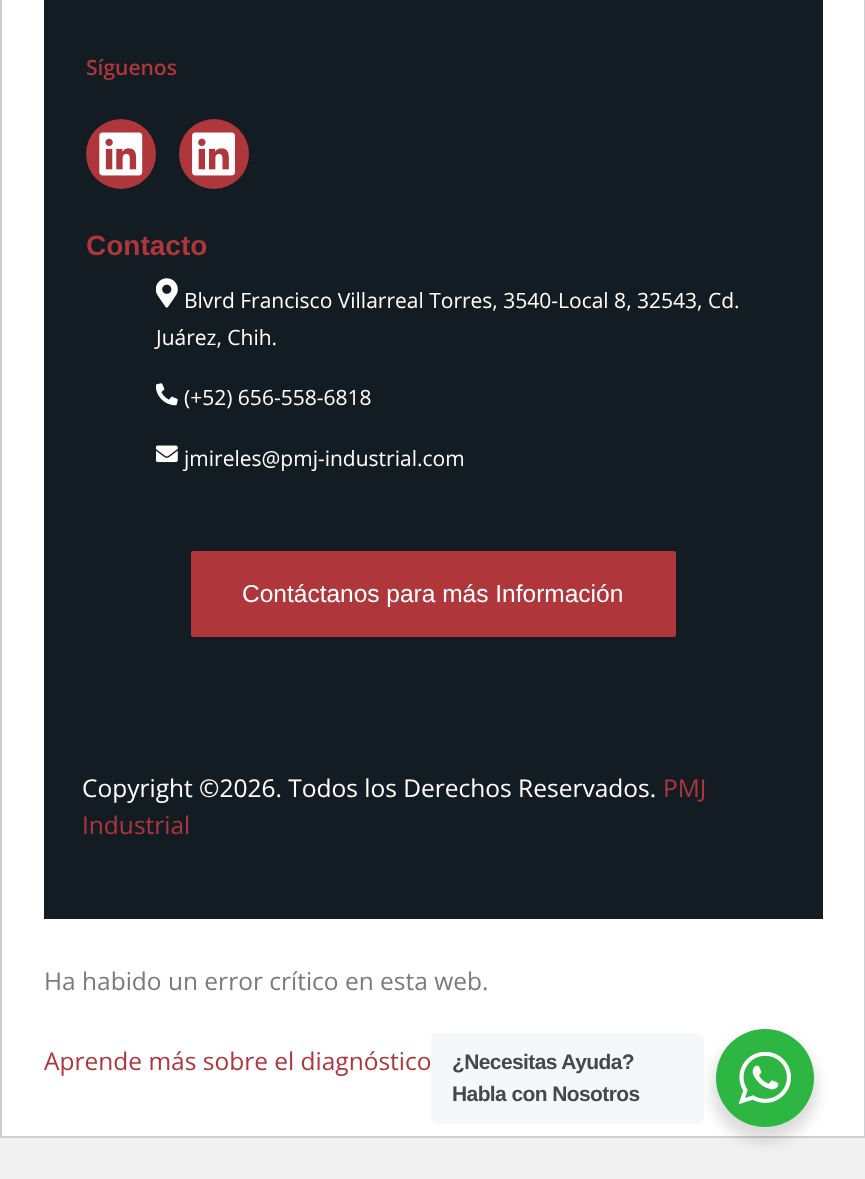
async function draw(canvas) {
  canvas.width = 865;
  canvas.height = 1179;
  const ctx = canvas.getContext('2d');
  ctx.miterLimit = 4;
  ctx.fontKerning = 'normal';
  function label(s, x, y, font, color) {
    ctx.font = font;
    ctx.fillStyle = color;
    ctx.fillText(s, x, y);
  }
  function rect(x, y, w, h, color) {
    ctx.fillStyle = color;
    ctx.fillRect(x, y, w, h);
  }
  function roundedRect(x, y, w, h, r, color) {
    ctx.fillStyle = color;
    ctx.beginPath();
    ctx.roundRect(x, y, w, h, r);
    ctx.fill();
  }
  async function image(src, x, y, w, h) {
    const img = new Image();
    img.src = src;
    await img.decode();
    ctx.drawImage(img, x, y, w, h);
  }

  rect(0, 0, 865, 1179, '#f1f1f1');
  ctx.fillStyle = '#fff';
  ctx.beginPath();
  ctx.rect(1, -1, 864, 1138);
  ctx.fill();
  ctx.strokeStyle = '#ccd0d4';
  ctx.lineWidth = 2;
  ctx.stroke();
  rect(44, 0, 779, 919, '#121c22');
  label('Síguenos', 86, 75, '600 21px Open Sans', '#af373b');
  ctx.beginPath();
  ctx.arc(121, 154, 35, 0, 2 * Math.PI);
  ctx.fill();
  await image('assets/img1.png', 99, 132, 44, 44);
  ctx.beginPath();
  ctx.arc(214, 154, 35, 0, 2 * Math.PI);
  ctx.fill();
  await image('assets/img2.png', 192, 132, 43, 44);
  label('Contacto', 86, 255, 'bold 28px Liberation Sans', '#af373b');
  await image('assets/img3.png', 156, 278, 22, 30);
  label('Blvrd Francisco Villarreal Torres, 3540-Local 8, 32543, Cd.', 184, 308, '21px Open Sans', '#fff');
  label('Juárez, Chih.', 156, 345, '21px Open Sans', '#fff');
  await image('assets/img4.png', 156, 383, 22, 23);
  label('(+52) 656-558-6818', 184, 405, '21px Open Sans', '#fff');
  await image('assets/img5.png', 156, 445, 22, 18);
  label('jmireles@pmj-industrial.com', 184, 466, '21px Open Sans', '#fff');
  roundedRect(191, 551, 485, 86, 2, '#af373b');
  label('Contáctanos para más Información', 242, 602, '24.5px Liberation Sans', '#fff');
  label('Copyright ©2026. Todos los Derechos Reservados.', 82, 797, '24.5px Open Sans', '#fff');
  label('PMJ', 663, 797, '24.5px Open Sans', '#af373b');
  label('Industrial', 82, 834, '24.5px Open Sans', '#af373b');
  label('Ha habido un error crítico en esta web.', 44, 990, '24.5px Open Sans', '#7a7a7a');
  label('Aprende más sobre el diagnóstico', 44, 1070, '24.5px Open Sans', '#af373b');
  ctx.fillStyle = '#00000024';
  ctx.filter = 'blur(7px)';
  ctx.beginPath();
  ctx.roundRect(712, 1036, 105, 105, 52.5);
  ctx.fill();
  ctx.filter = 'none';
  roundedRect(431, 1033, 273, 91, 7, '#f5f7f9');
  ctx.letterSpacing = '-0.6px';
  label('¿Necesitas Ayuda?', 452, 1069, 'bold 21px Liberation Sans', '#43474e');
  label('Habla con Nosotros', 452, 1101, 'bold 21px Liberation Sans', '#43474e');
  ctx.fillStyle = '#2db742';
  ctx.beginPath();
  ctx.arc(765, 1078, 49, 0, 2 * Math.PI);
  ctx.fill();
  await image('assets/img6.png', 739, 1052, 52, 52);
}

draw(document.querySelector('canvas'));
